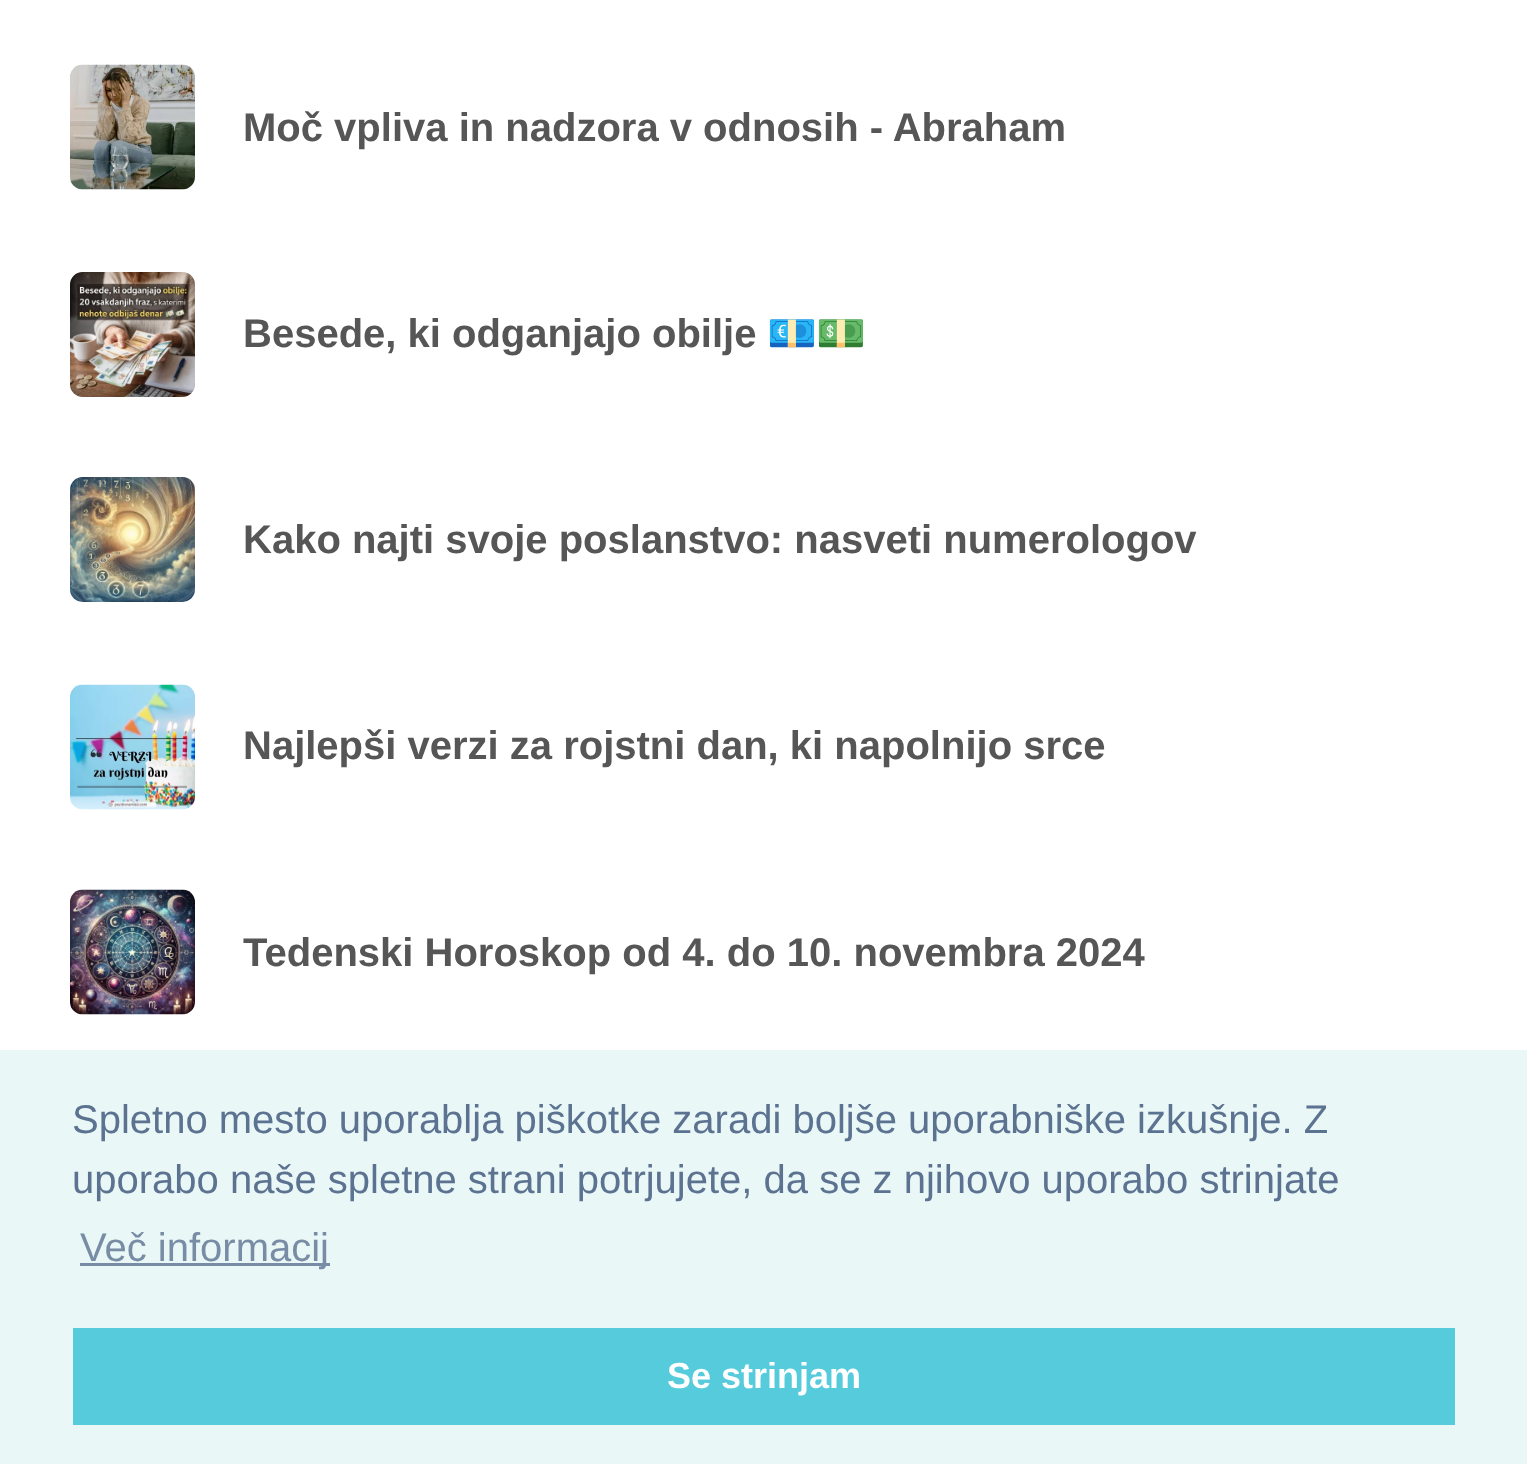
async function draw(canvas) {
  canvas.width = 1527;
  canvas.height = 1464;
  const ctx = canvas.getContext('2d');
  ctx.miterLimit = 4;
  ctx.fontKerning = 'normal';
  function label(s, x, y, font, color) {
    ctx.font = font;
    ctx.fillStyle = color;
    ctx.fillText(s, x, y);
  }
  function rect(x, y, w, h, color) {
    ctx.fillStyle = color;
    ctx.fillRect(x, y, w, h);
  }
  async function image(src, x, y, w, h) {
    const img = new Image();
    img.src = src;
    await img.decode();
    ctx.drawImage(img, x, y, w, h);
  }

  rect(0, 0, 1527, 1464, '#fff');
  await image('assets/img1.png', 70, 64, 125, 126);
  label('Moč vpliva in nadzora v odnosih - Abraham', 243, 141, 'bold 40px Liberation Sans', '#565656');
  await image('assets/img2.png', 70, 272, 125, 125);
  label('Besede, ki odganjajo obilje', 243, 347, 'bold 40px Liberation Sans', '#565656');
  label('💶💵', 767, 347, 'bold 40px Noto Color Emoji', '#565656');
  await image('assets/img3.png', 70, 477, 125, 125);
  label('Kako najti svoje poslanstvo: nasveti numerologov', 243, 553, 'bold 40px Liberation Sans', '#565656');
  await image('assets/img4.png', 70, 684, 125, 126);
  label('Najlepši verzi za rojstni dan, ki napolnijo srce', 243, 759, 'bold 40px Liberation Sans', '#565656');
  await image('assets/img5.png', 70, 889, 125, 126);
  label('Tedenski Horoskop od 4. do 10. novembra 2024', 243, 966, 'bold 40px Liberation Sans', '#565656');
  rect(0, 1050, 1527, 414, '#eaf7f7');
  label('Spletno mesto uporablja piškotke zaradi boljše uporabniške izkušnje. Z', 72, 1133, '40px Liberation Sans', '#5c7291');
  label('uporabo naše spletne strani potrjujete, da se z njihovo uporabo strinjate', 72, 1193, '40px Liberation Sans', '#5c7291');
  rect(80, 1263, 250, 3, '#788da5');
  label('Več informacij', 80, 1261, '40px Liberation Sans', '#788da5');
  rect(73, 1328, 1382, 97, '#56cbdb');
  label('Se strinjam', 667, 1388, 'bold 36px Liberation Sans', '#fff');
}

draw(document.querySelector('canvas'));
